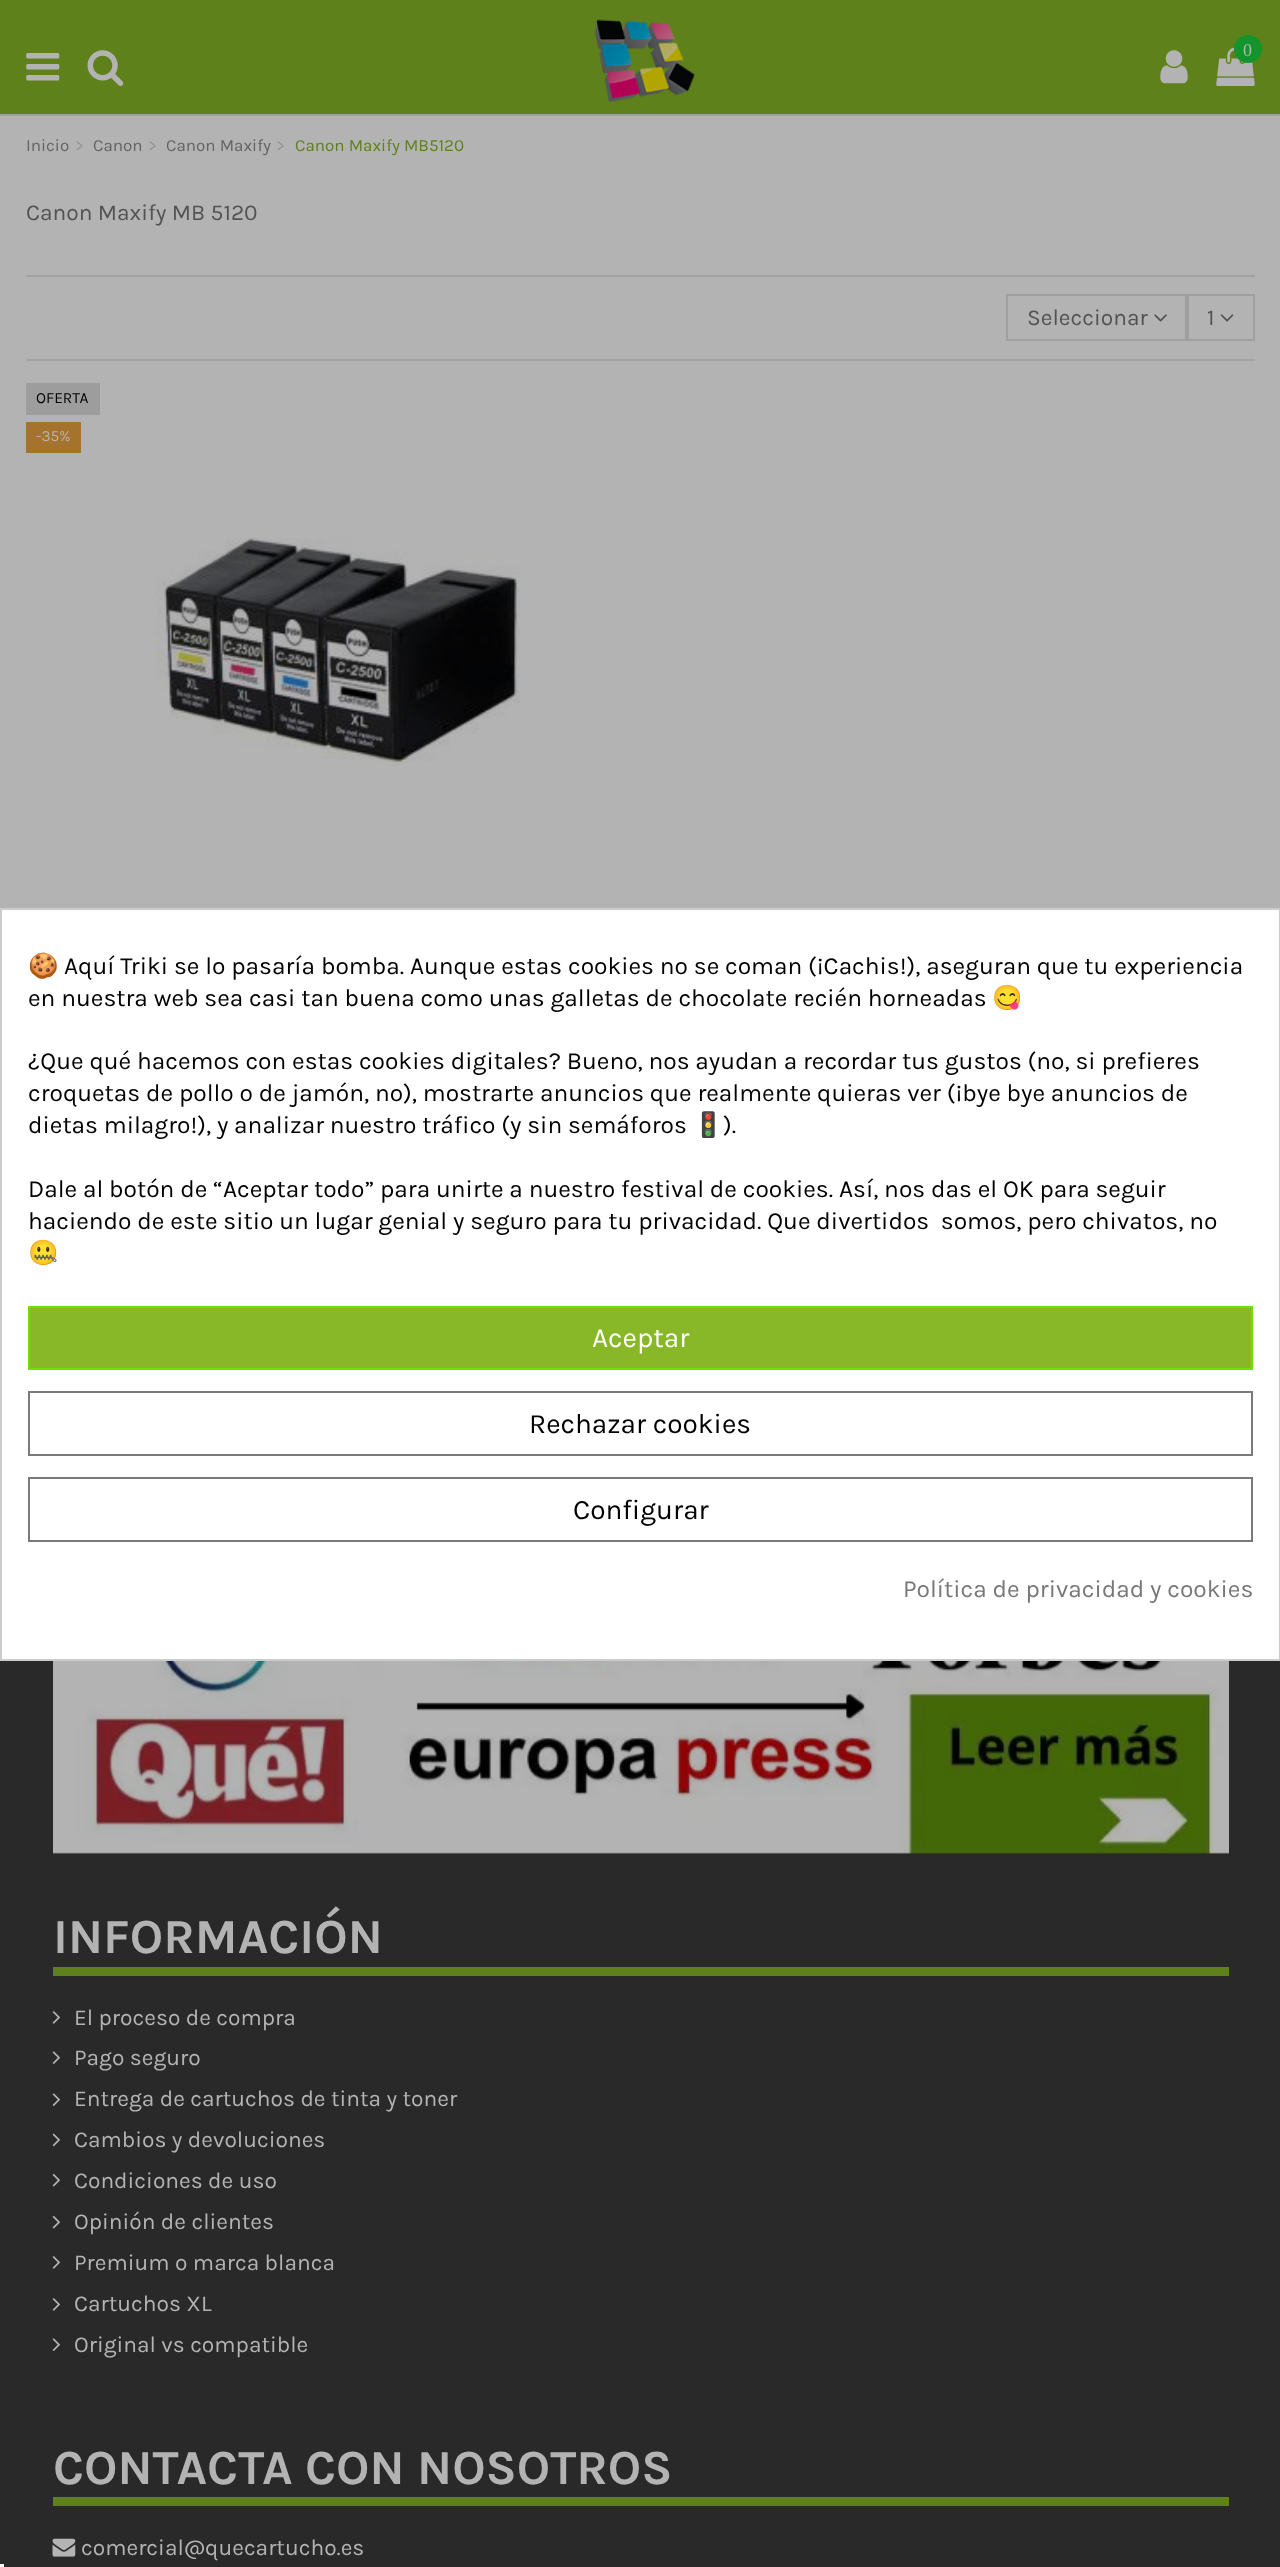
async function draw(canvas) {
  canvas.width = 1280;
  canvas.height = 2567;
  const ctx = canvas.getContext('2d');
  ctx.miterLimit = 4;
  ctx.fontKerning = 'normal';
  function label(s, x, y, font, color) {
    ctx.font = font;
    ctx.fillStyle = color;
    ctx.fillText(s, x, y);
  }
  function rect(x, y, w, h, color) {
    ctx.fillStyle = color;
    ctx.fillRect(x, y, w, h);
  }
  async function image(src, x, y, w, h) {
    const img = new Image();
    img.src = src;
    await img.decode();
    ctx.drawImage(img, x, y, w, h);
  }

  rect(0, 0, 1280, 2567, '#b3b3b3');
  rect(0, 0, 1280, 114, '#5f811c');
  rect(0, 114, 1280, 2, '#9f9f9f');
  await image('assets/img1.png', 26, 53, 34, 28);
  await image('assets/img2.png', 87, 50, 37, 36);
  await image('assets/img3.png', 594, 19, 101, 84);
  await image('assets/img4.png', 1160, 50, 28, 34);
  await image('assets/img5.png', 1216, 47, 39, 39);
  ctx.fillStyle = '#13942c';
  ctx.beginPath();
  ctx.arc(1248, 49, 14, 0, 2 * Math.PI);
  ctx.fill();
  label('0', 1243, 56, '18px Liberation Serif', '#b3b3b3');
  label('Inicio', 26, 151, '17px Karla', '#646464');
  label('>', 75, 151, '17px Karla', '#939393');
  label('Canon', 93, 151, '17px Karla', '#646464');
  label('>', 148, 151, '17px Karla', '#939393');
  label('Canon Maxify', 166, 151, '17px Karla', '#646464');
  label('>', 276, 151, '17px Karla', '#939393');
  label('Canon Maxify MB5120', 295, 151, '17px Karla', '#5f811c');
  label('Canon Maxify MB 5120', 26, 220, '22.75px Karla', '#535353');
  rect(26, 275, 1229, 2, '#a2a2a2');
  rect(26, 359, 1229, 2, '#a2a2a2');
  ctx.strokeStyle = '#9f9f9f';
  ctx.lineWidth = 2;
  ctx.strokeRect(1007, 295, 179, 45);
  label('Seleccionar', 1027, 325, '22.75px Karla', '#535353');
  await image('assets/img6.png', 1154, 314, 13, 8);
  ctx.strokeRect(1188, 295, 66, 45);
  label('1', 1207, 325, '22.75px Karla', '#535353');
  await image('assets/img7.png', 1220, 314, 14, 8);
  rect(26, 383, 74, 32, '#9d9d9d');
  label('OFERTA', 36, 403, '15.5px Karla', '#000');
  rect(26, 422, 55, 31, '#a5732b');
  label('-35%', 36, 441, '15.5px Karla', '#b3b3b3');
  await image('assets/img8.png', 155, 538, 365, 227);
  rect(0, 1661, 1280, 906, '#292929');
  await image('assets/img9.png', 53, 1661, 1176, 193);
  rect(53, 1967, 1176, 9, '#5f811c');
  label('INFORMACIÓN', 53, 1953, 'bold 49px Karla', '#b3b3b3');
  await image('assets/img10.png', 52, 2011, 8, 13);
  label('El proceso de compra', 74, 2025, '22.75px Karla', '#b3b3b3');
  await image('assets/img11.png', 52, 2051, 8, 13);
  label('Pago seguro', 74, 2065, '22.75px Karla', '#b3b3b3');
  await image('assets/img11.png', 52, 2093, 8, 13);
  label('Entrega de cartuchos de tinta y toner', 74, 2106, '22.75px Karla', '#b3b3b3');
  await image('assets/img12.png', 52, 2133, 8, 14);
  label('Cambios y devoluciones', 74, 2147, '22.75px Karla', '#b3b3b3');
  await image('assets/img13.png', 52, 2173, 8, 14);
  label('Condiciones de uso', 74, 2188, '22.75px Karla', '#b3b3b3');
  await image('assets/img13.png', 52, 2215, 8, 14);
  label('Opinión de clientes', 74, 2229, '22.75px Karla', '#b3b3b3');
  await image('assets/img10.png', 52, 2256, 8, 13);
  label('Premium o marca blanca', 74, 2270, '22.75px Karla', '#b3b3b3');
  await image('assets/img10.png', 52, 2298, 8, 13);
  label('Cartuchos XL', 74, 2311, '22.75px Karla', '#b3b3b3');
  await image('assets/img11.png', 52, 2338, 8, 13);
  label('Original vs compatible', 74, 2352, '22.75px Karla', '#b3b3b3');
  rect(53, 2497, 1176, 9, '#5f811c');
  label('CONTACTA CON NOSOTROS', 53, 2484, 'bold 49px Karla', '#b3b3b3');
  await image('assets/img14.png', 52, 2538, 24, 19);
  label('comercial@quecartucho.es', 81, 2555, '22.75px Karla', '#b3b3b3');
  ctx.fillStyle = '#fff';
  ctx.beginPath();
  ctx.rect(1, 909, 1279, 751);
  ctx.fill();
  ctx.strokeStyle = '#ccc';
  ctx.stroke();
  label('🍪', 28, 974, '24.5px Noto Color Emoji', '#000');
  label('Aquí Triki se lo pasaría bomba. Aunque estas cookies no se coman (¡Cachis!), aseguran que tu experiencia', 64, 974, '24.5px Karla', '#000');
  label('en nuestra web sea casi tan buena como unas galletas de chocolate recién horneadas', 28, 1006, '24.5px Karla', '#000');
  label('😋', 992, 1006, '24.5px Noto Color Emoji', '#000');
  label('¿Que qué hacemos con estas cookies digitales? Bueno, nos ayudan a recordar tus gustos (no, si prefieres', 28, 1069, '24.5px Karla', '#000');
  label('croquetas de pollo o de jamón, no), mostrarte anuncios que realmente quieras ver (¡bye bye anuncios de', 28, 1101, '24.5px Karla', '#000');
  label('dietas milagro!), y analizar nuestro tráfico (y sin semáforos', 28, 1133, '24.5px Karla', '#000');
  label('🚦', 693, 1133, '24.5px Noto Color Emoji', '#000');
  label(').', 723, 1133, '24.5px Karla', '#000');
  label('Dale al botón de “Aceptar todo” para unirte a nuestro festival de cookies. Así, nos das el OK para seguir', 28, 1197, '24.5px Karla', '#000');
  label('haciendo de este sitio un lugar genial y seguro para tu privacidad. Que divertidos  somos, pero chivatos, no', 28, 1229, '24.5px Karla', '#000');
  label('🤐', 28, 1261, '24.5px Noto Color Emoji', '#000');
  ctx.fillStyle = '#88b828';
  ctx.beginPath();
  ctx.rect(29, 1307, 1223, 62);
  ctx.fill();
  ctx.strokeStyle = '#70e000';
  ctx.stroke();
  label('Aceptar', 592, 1347, '28px Karla', '#fff');
  ctx.strokeStyle = '#7a7a7a';
  ctx.strokeRect(29, 1392, 1223, 63);
  label('Rechazar cookies', 529, 1433, '28px Karla', '#000');
  ctx.strokeRect(29, 1478, 1223, 63);
  label('Configurar', 573, 1519, '28px Karla', '#000');
  label('Política de privacidad y cookies', 903, 1597, '24.5px Karla', '#777');
  rect(0, 2564, 4, 3, '#f5f5f5');
}

draw(document.querySelector('canvas'));
